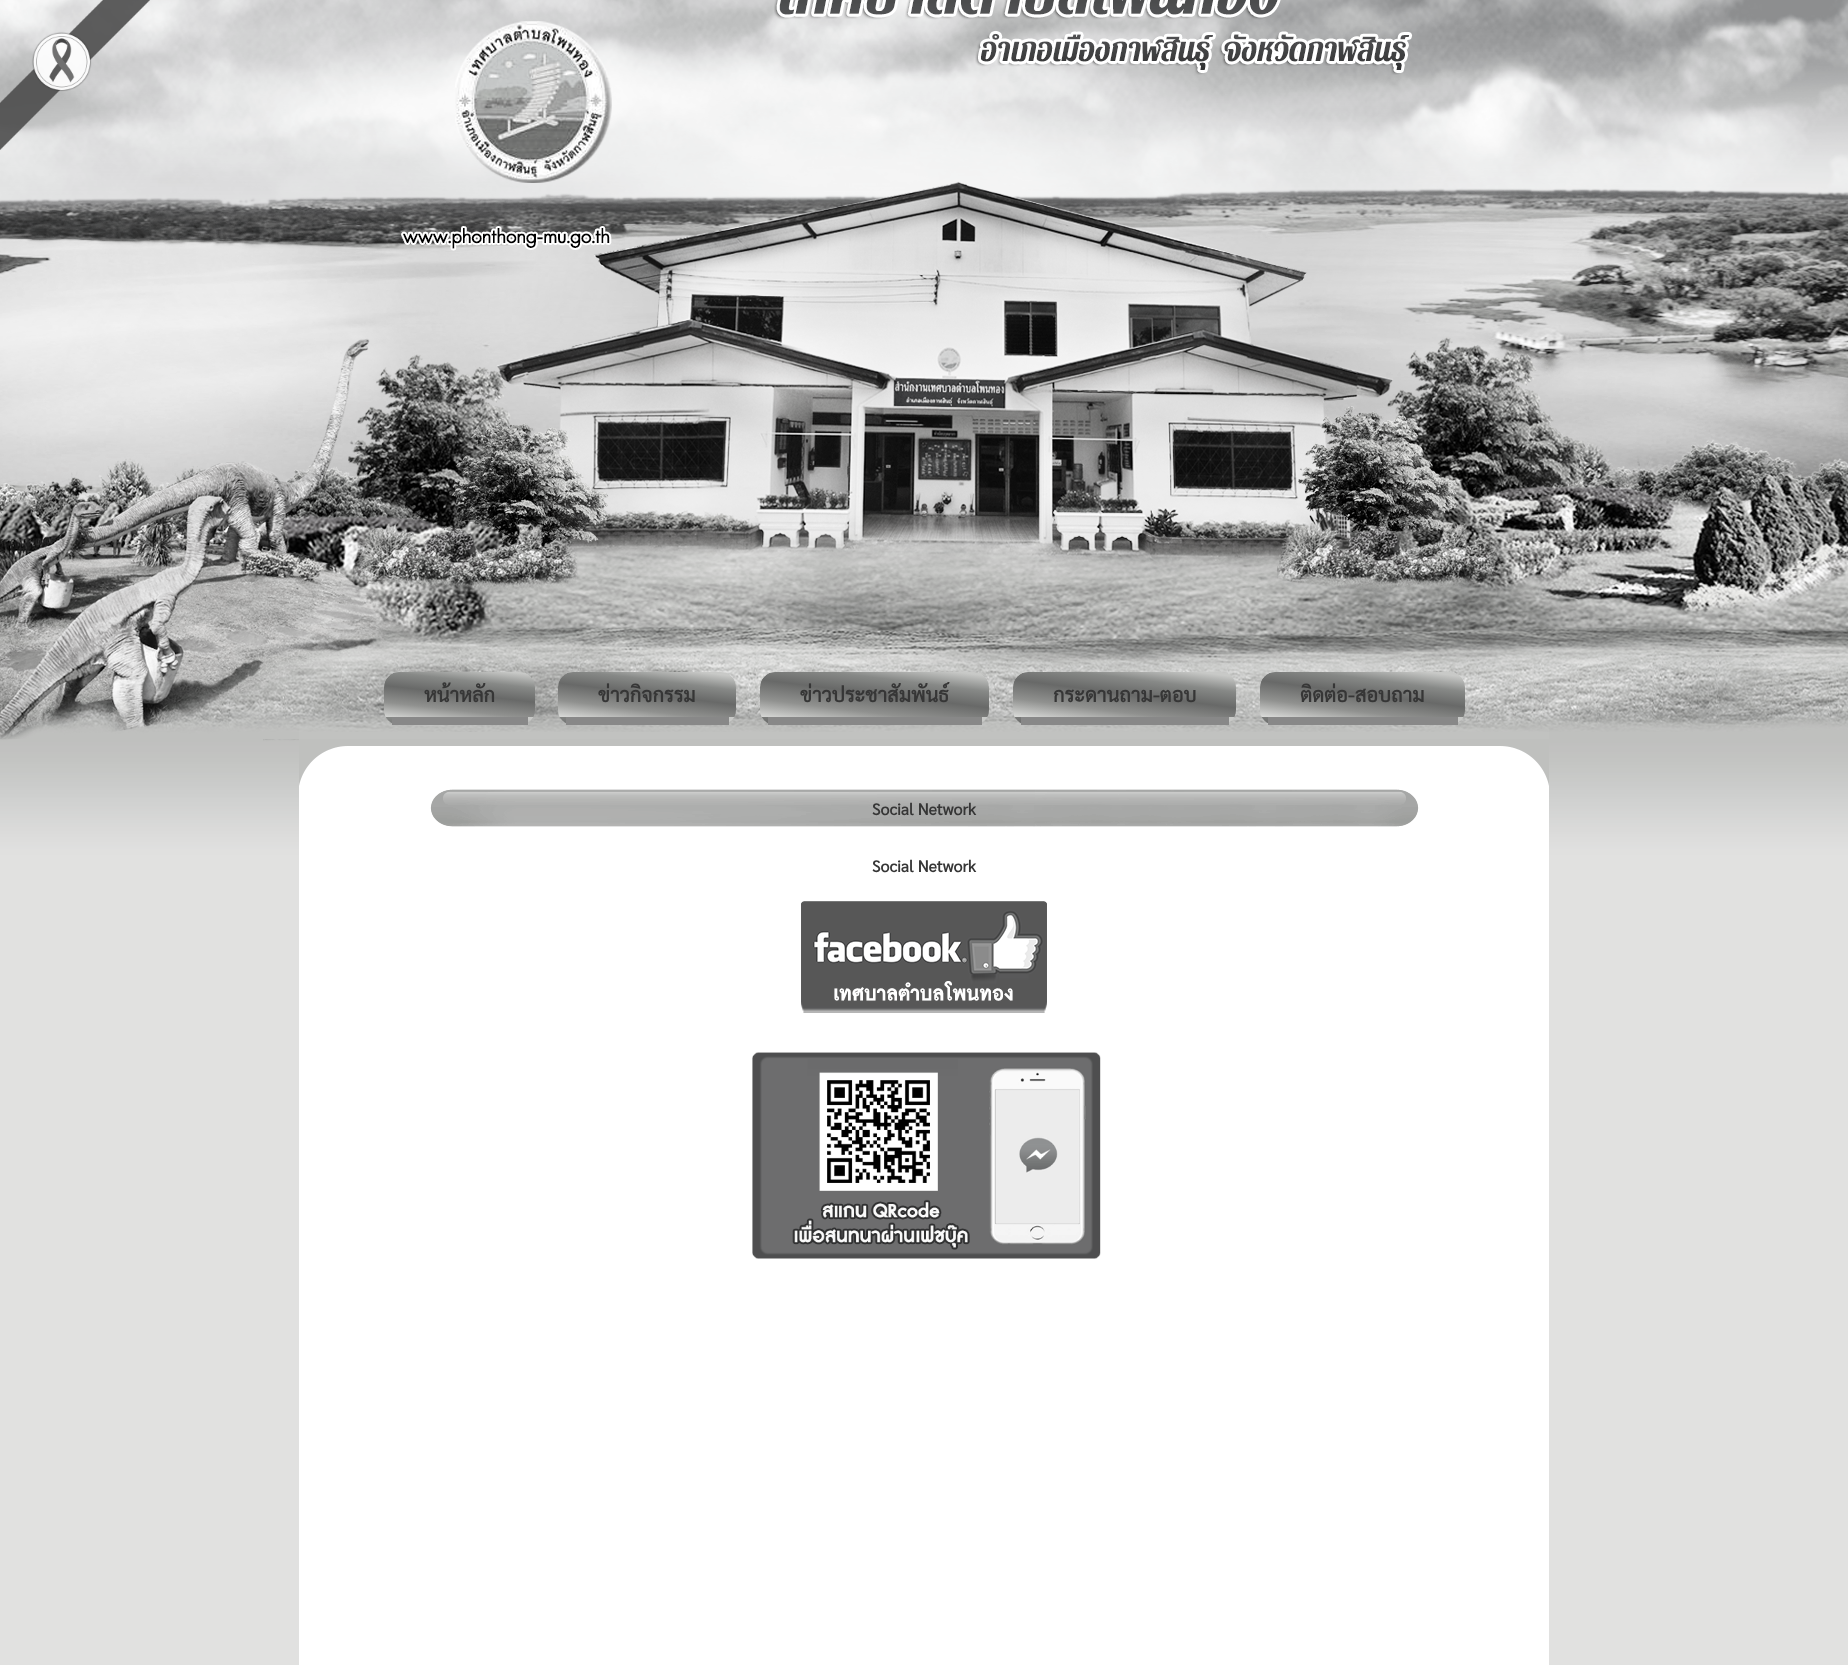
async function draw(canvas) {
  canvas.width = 1848;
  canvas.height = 1665;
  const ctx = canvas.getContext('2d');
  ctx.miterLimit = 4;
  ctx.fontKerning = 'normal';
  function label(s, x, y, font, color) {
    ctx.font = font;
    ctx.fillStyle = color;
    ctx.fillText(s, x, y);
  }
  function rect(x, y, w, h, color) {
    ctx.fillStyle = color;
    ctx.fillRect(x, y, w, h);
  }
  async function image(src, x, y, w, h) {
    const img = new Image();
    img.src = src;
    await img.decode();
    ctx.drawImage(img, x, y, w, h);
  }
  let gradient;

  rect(0, 0, 1848, 1665, '#fff');
  await image('assets/img2.png', 0, 0, 299, 739);
  await image('assets/img1.png', 0, 0, 150, 150);
  await image('assets/img3.png', 299, 0, 1250, 739);
  await image('assets/img4.png', 455, 21, 157, 162);
  await image('assets/img5.png', 774, 0, 639, 75);
  ctx.save();
  ctx.beginPath();
  ctx.roundRect(384, 672, 151, 53, 15);
  ctx.clip();
  gradient = ctx.createLinearGradient(456, 726, 463, 663);
  gradient.addColorStop(0, '#d9dad8');
  gradient.addColorStop(0.25, '#90918f');
  gradient.addColorStop(0.51, '#686968');
  gradient.addColorStop(0.73, '#878987');
  gradient.addColorStop(0.94, '#c8c9c7');
  ctx.fillStyle = gradient;
  ctx.beginPath();
  ctx.roundRect(384, 672, 151, 45, [15, 15, 0, 0]);
  ctx.fill();
  gradient = ctx.createLinearGradient(456, 771, 463, 708);
  gradient.addColorStop(0, '#d9dad8');
  gradient.addColorStop(0.25, '#90918f');
  gradient.addColorStop(0.51, '#686968');
  gradient.addColorStop(0.73, '#878987');
  gradient.addColorStop(0.94, '#c8c9c7');
  ctx.fillStyle = gradient;
  ctx.fillRect(384, 717, 151, 7);
  ctx.restore();
  rect(392, 717, 136, 8, '#888');
  label('หน้าหลัก', 424, 702, 'bold 20px Sarabun', '#363636');
  ctx.save();
  ctx.beginPath();
  ctx.roundRect(558, 672, 178, 53, 15);
  ctx.clip();
  gradient = ctx.createLinearGradient(643, 727, 651, 662);
  gradient.addColorStop(0, '#d9dad8');
  gradient.addColorStop(0.25, '#90918f');
  gradient.addColorStop(0.51, '#686968');
  gradient.addColorStop(0.73, '#878987');
  gradient.addColorStop(0.94, '#c8c9c7');
  ctx.fillStyle = gradient;
  ctx.beginPath();
  ctx.roundRect(558, 672, 178, 45, [15, 15, 0, 0]);
  ctx.fill();
  gradient = ctx.createLinearGradient(643, 772, 651, 707);
  gradient.addColorStop(0, '#d9dad8');
  gradient.addColorStop(0.25, '#90918f');
  gradient.addColorStop(0.51, '#686968');
  gradient.addColorStop(0.73, '#878987');
  gradient.addColorStop(0.94, '#c8c9c7');
  ctx.fillStyle = gradient;
  ctx.fillRect(558, 717, 178, 7);
  ctx.restore();
  rect(566, 717, 163, 8, '#888');
  label('ข่าวกิจกรรม', 598, 702, 'bold 20px Sarabun', '#363636');
  ctx.save();
  ctx.beginPath();
  ctx.roundRect(760, 672, 229, 53, 15);
  ctx.clip();
  gradient = ctx.createLinearGradient(870, 731, 879, 658);
  gradient.addColorStop(0, '#d9dad8');
  gradient.addColorStop(0.25, '#90918f');
  gradient.addColorStop(0.51, '#686968');
  gradient.addColorStop(0.73, '#878987');
  gradient.addColorStop(0.94, '#c8c9c7');
  ctx.fillStyle = gradient;
  ctx.beginPath();
  ctx.roundRect(760, 672, 229, 45, [15, 15, 0, 0]);
  ctx.fill();
  gradient = ctx.createLinearGradient(870, 776, 879, 703);
  gradient.addColorStop(0, '#d9dad8');
  gradient.addColorStop(0.25, '#90918f');
  gradient.addColorStop(0.51, '#686968');
  gradient.addColorStop(0.73, '#878987');
  gradient.addColorStop(0.94, '#c8c9c7');
  ctx.fillStyle = gradient;
  ctx.fillRect(760, 717, 229, 7);
  ctx.restore();
  rect(768, 717, 214, 8, '#888');
  label('ข่าวประชาสัมพันธ์', 800, 702, 'bold 20px Sarabun', '#363636');
  ctx.save();
  ctx.beginPath();
  ctx.roundRect(1013, 672, 223, 53, 15);
  ctx.clip();
  gradient = ctx.createLinearGradient(1120, 730, 1129, 659);
  gradient.addColorStop(0, '#d9dad8');
  gradient.addColorStop(0.25, '#90918f');
  gradient.addColorStop(0.51, '#686968');
  gradient.addColorStop(0.73, '#878987');
  gradient.addColorStop(0.94, '#c8c9c7');
  ctx.fillStyle = gradient;
  ctx.beginPath();
  ctx.roundRect(1013, 672, 223, 45, [15, 15, 0, 0]);
  ctx.fill();
  gradient = ctx.createLinearGradient(1120, 775, 1129, 704);
  gradient.addColorStop(0, '#d9dad8');
  gradient.addColorStop(0.25, '#90918f');
  gradient.addColorStop(0.51, '#686968');
  gradient.addColorStop(0.73, '#878987');
  gradient.addColorStop(0.94, '#c8c9c7');
  ctx.fillStyle = gradient;
  ctx.fillRect(1013, 717, 223, 7);
  ctx.restore();
  rect(1021, 717, 208, 8, '#888');
  label('กระดานถาม-ตอบ', 1053, 702, 'bold 20px Sarabun', '#363636');
  ctx.save();
  ctx.beginPath();
  ctx.roundRect(1260, 672, 205, 53, 15);
  ctx.clip();
  gradient = ctx.createLinearGradient(1358, 729, 1367, 660);
  gradient.addColorStop(0, '#d9dad8');
  gradient.addColorStop(0.25, '#90918f');
  gradient.addColorStop(0.51, '#686968');
  gradient.addColorStop(0.73, '#878987');
  gradient.addColorStop(0.94, '#c8c9c7');
  ctx.fillStyle = gradient;
  ctx.beginPath();
  ctx.roundRect(1260, 672, 205, 45, [15, 15, 0, 0]);
  ctx.fill();
  gradient = ctx.createLinearGradient(1358, 774, 1367, 705);
  gradient.addColorStop(0, '#d9dad8');
  gradient.addColorStop(0.25, '#90918f');
  gradient.addColorStop(0.51, '#686968');
  gradient.addColorStop(0.73, '#878987');
  gradient.addColorStop(0.94, '#c8c9c7');
  ctx.fillStyle = gradient;
  ctx.fillRect(1260, 717, 205, 7);
  ctx.restore();
  rect(1268, 717, 190, 8, '#888');
  label('ติดต่อ-สอบถาม', 1300, 702, 'bold 20px Sarabun', '#363636');
  await image('assets/img6.png', 1549, 0, 299, 739);
  await image('assets/img7.png', 0, 739, 299, 926);
  await image('assets/img8.png', 299, 739, 1250, 47);
  await image('assets/img9.png', 430, 789, 989, 38);
  label('Social Network', 872, 815, 'bold 16px Sarabun', '#363636');
  label('Social Network', 872, 872, 'bold 16px Sarabun', '#363636');
  await image('assets/img10.png', 801, 901, 246, 112);
  await image('assets/img11.png', 752, 1052, 349, 207);
  await image('assets/img12.png', 1549, 739, 299, 926);
}

draw(document.querySelector('canvas'));
